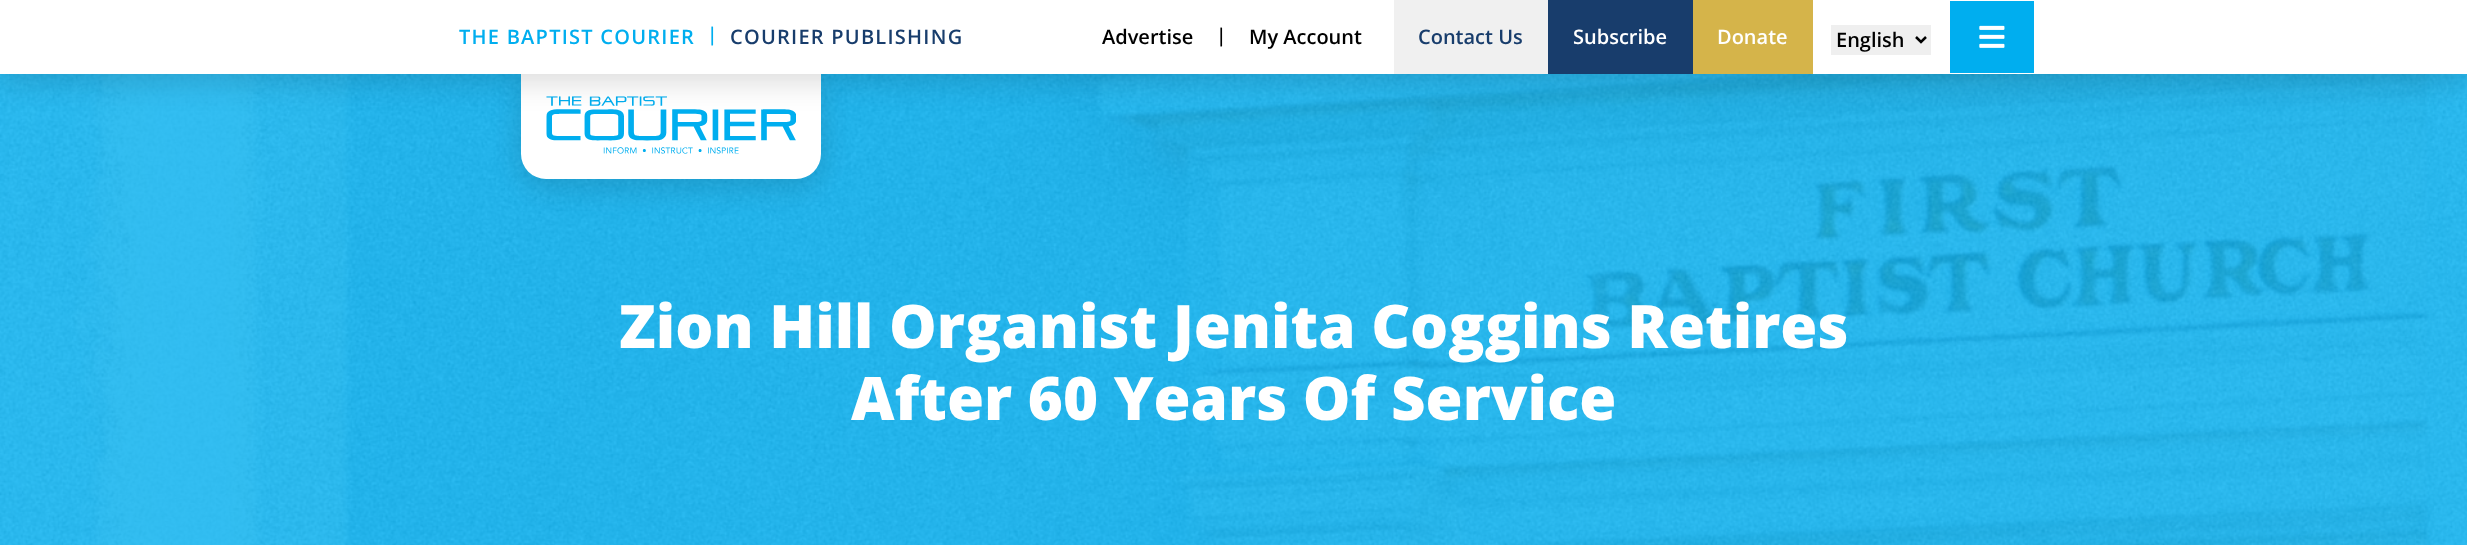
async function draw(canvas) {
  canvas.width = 2467;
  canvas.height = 545;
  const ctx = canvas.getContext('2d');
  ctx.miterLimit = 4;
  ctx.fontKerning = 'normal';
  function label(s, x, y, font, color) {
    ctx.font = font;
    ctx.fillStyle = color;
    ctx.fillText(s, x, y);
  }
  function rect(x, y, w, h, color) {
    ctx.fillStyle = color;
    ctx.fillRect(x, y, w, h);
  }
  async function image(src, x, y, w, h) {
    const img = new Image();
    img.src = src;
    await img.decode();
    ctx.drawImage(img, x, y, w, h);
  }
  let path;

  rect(0, 0, 2467, 545, '#fff');
  await image('assets/img3.png', 0, 74, 2467, 471);
  ctx.fillStyle = '#00000026';
  ctx.filter = 'blur(15px)';
  ctx.beginPath();
  ctx.roundRect(521, 81, 300, 105, 25);
  ctx.fill();
  ctx.filter = 'none';
  ctx.fillStyle = '#fff';
  ctx.beginPath();
  ctx.roundRect(521, 74, 300, 105, [0, 0, 25, 25]);
  ctx.fill();
  await image('assets/img2.png', 546, 96, 250, 58);
  ctx.fillStyle = '#00000026';
  ctx.filter = 'blur(15px)';
  ctx.beginPath();
  ctx.rect(0, 8, 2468, 73);
  ctx.fill();
  ctx.filter = 'none';
  rect(0, 0, 2467, 74, '#fff');
  ctx.letterSpacing = '1.25px';
  label('THE BAPTIST COURIER', 459, 44, '600 20px Open Sans', '#00aeef');
  ctx.letterSpacing = '0px';
  label('|', 707, 41, '600 19px Open Sans', '#00aeef');
  ctx.letterSpacing = '1.25px';
  label('COURIER PUBLISHING', 730, 44, '600 20px Open Sans', '#183d6c');
  ctx.letterSpacing = '0px';
  label('Advertise', 1102, 44, '600 20px Open Sans', '#000');
  label('|', 1216, 42, '600 19px Open Sans', '#000');
  label('My Account', 1249, 44, '600 20px Open Sans', '#000');
  rect(1394, 0, 154, 74, '#f0f0f0');
  label('Contact Us', 1418, 44, '600 20px Open Sans', '#183d6c');
  rect(1548, 0, 145, 74, '#183d6c');
  label('Subscribe', 1573, 44, '600 20px Open Sans', '#fff');
  rect(1693, 0, 120, 74, '#d5b44a');
  label('Donate', 1717, 44, '600 20px Open Sans', '#fff');
  rect(1831, 25, 100, 30, '#efefef');
  path = new Path2D('M1916 37L1921 42L1926 37');
  ctx.strokeStyle = '#000';
  ctx.lineWidth = 2.5;
  ctx.stroke(path);
  label('English', 1836, 47, '600 20px Open Sans', '#000');
  rect(1950, 1, 84, 72, '#00aeef');
  await image('assets/img1.png', 1979, 25, 26, 23);
  label('Zion Hill Organist Jenita Coggins Retires', 619, 348, '800 60px Open Sans', '#fff');
  label('After 60 Years Of Service', 851, 420, '800 60px Open Sans', '#fff');
}

draw(document.querySelector('canvas'));
